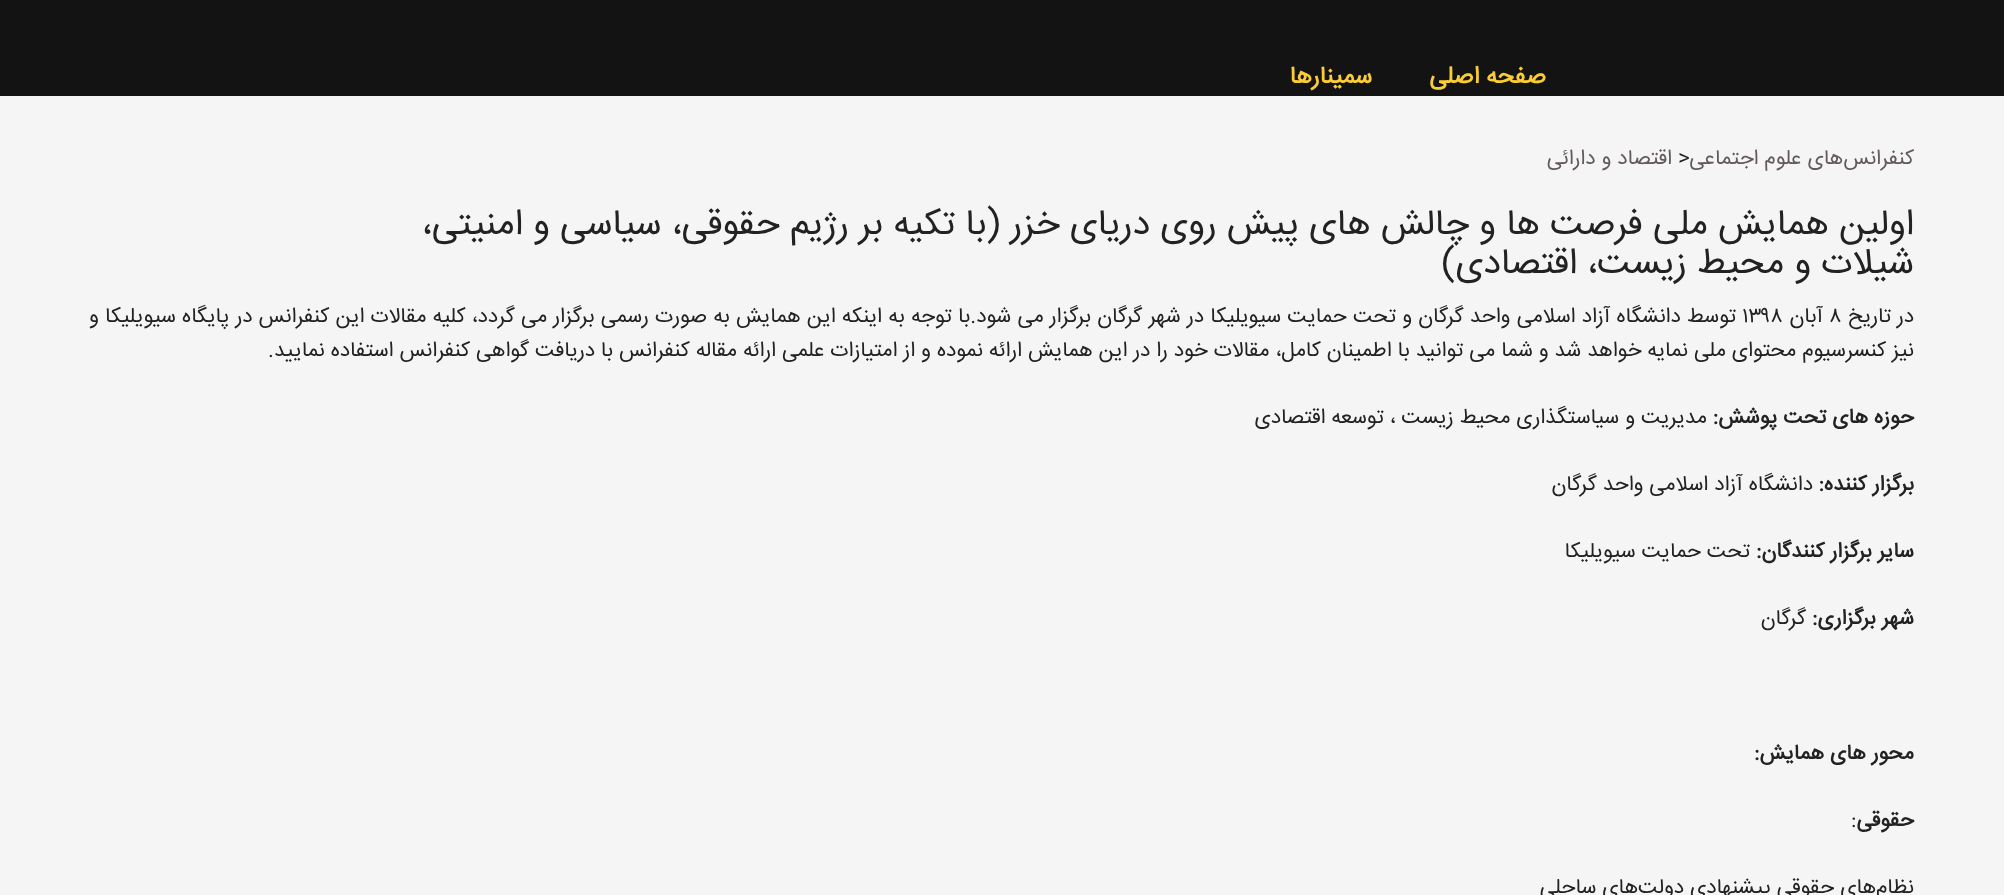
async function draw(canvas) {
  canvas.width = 2004;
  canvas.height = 895;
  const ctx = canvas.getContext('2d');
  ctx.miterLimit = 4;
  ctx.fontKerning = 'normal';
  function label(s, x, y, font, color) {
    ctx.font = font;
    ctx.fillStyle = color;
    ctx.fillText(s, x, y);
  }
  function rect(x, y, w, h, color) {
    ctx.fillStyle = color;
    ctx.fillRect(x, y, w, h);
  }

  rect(0, 0, 2004, 895, '#f5f5f5');
  rect(0, 0, 2004, 96, '#131313');
  ctx.direction = 'rtl';
  label('صفحه اصلی', 1546, 83, 'bold 24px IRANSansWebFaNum', '#fbcd35');
  label('سمینارها', 1372, 83, 'bold 24px IRANSansWebFaNum', '#fbcd35');
  label('کنفرانس‌های علوم اجتماعی', 1914, 164, '21px IRANSansWebFaNum', '#635b5b');
  ctx.direction = 'ltr';
  label('>', 1678, 164, '21px IRANSansWebFaNum', '#222');
  ctx.direction = 'rtl';
  label('اقتصاد و دارائی', 1672, 164, '21px IRANSansWebFaNum', '#635b5b');
  label('اولین همایش ملی فرصت ها و چالش های پیش روی دریای خزر (با تکیه بر رژیم حقوقی، سیاسی و امنیتی،', 1914, 234, '36px IRANSansWebFaNum', '#222');
  label('شیلات و محیط زیست، اقتصادی)', 1914, 273, '36px IRANSansWebFaNum', '#222');
  label('در تاریخ', 1914, 322, '21px IRANSansWebFaNum', '#222');
  ctx.direction = 'ltr';
  label('۸', 1829, 322, '21px IRANSansWebFaNum', '#222');
  ctx.direction = 'rtl';
  label('آبان', 1823, 322, '21px IRANSansWebFaNum', '#222');
  ctx.direction = 'ltr';
  label('۱۳۹۸', 1742, 322, '21px IRANSansWebFaNum', '#222');
  ctx.wordSpacing = '0.25px';
  ctx.direction = 'rtl';
  label('توسط دانشگاه آزاد اسلامی واحد گرگان و تحت حمایت سیویلیکا در شهر گرگان برگزار می شود.با توجه به اینکه این همایش به صورت رسمی برگزار می گردد، کلیه مقالات این کنفرانس در پایگاه سیویلیکا و', 1736, 322, '21px IRANSansWebFaNum', '#222');
  ctx.wordSpacing = '0px';
  label('نیز کنسرسیوم محتوای ملی نمایه خواهد شد و شما می توانید با اطمینان کامل، مقالات خود را در این همایش ارائه نموده و از امتیازات علمی ارائه مقاله کنفرانس با دریافت گواهی کنفرانس استفاده نمایید.', 1914, 356, '21px IRANSansWebFaNum', '#222');
  label('حوزه های تحت پوشش:', 1914, 423, 'bold 21px IRANSansWebFaNum', '#222');
  label('مدیریت و سیاستگذاری محیط زیست ، توسعه اقتصادی', 1707, 423, '21px IRANSansWebFaNum', '#222');
  label('برگزار کننده:', 1914, 490, 'bold 21px IRANSansWebFaNum', '#222');
  label('دانشگاه آزاد اسلامی واحد گرگان', 1813, 490, '21px IRANSansWebFaNum', '#222');
  label('سایر برگزار کنندگان:', 1914, 557, 'bold 21px IRANSansWebFaNum', '#222');
  label('تحت حمایت سیویلیکا', 1750, 557, '21px IRANSansWebFaNum', '#222');
  label('شهر برگزاری:', 1914, 624, 'bold 21px IRANSansWebFaNum', '#222');
  label('گرگان', 1806, 624, '21px IRANSansWebFaNum', '#222');
  label('محور های همایش:', 1914, 759, 'bold 21px IRANSansWebFaNum', '#222');
  label('حقوقی', 1914, 826, 'bold 21px IRANSansWebFaNum', '#222');
  ctx.direction = 'ltr';
  label(':', 1851, 826, '21px IRANSansWebFaNum', '#222');
  ctx.direction = 'rtl';
  label('نظام‌های حقوقی پیشنهادی دولت‌های ساحلی', 1914, 893, '21px IRANSansWebFaNum', '#222');
}

draw(document.querySelector('canvas'));
